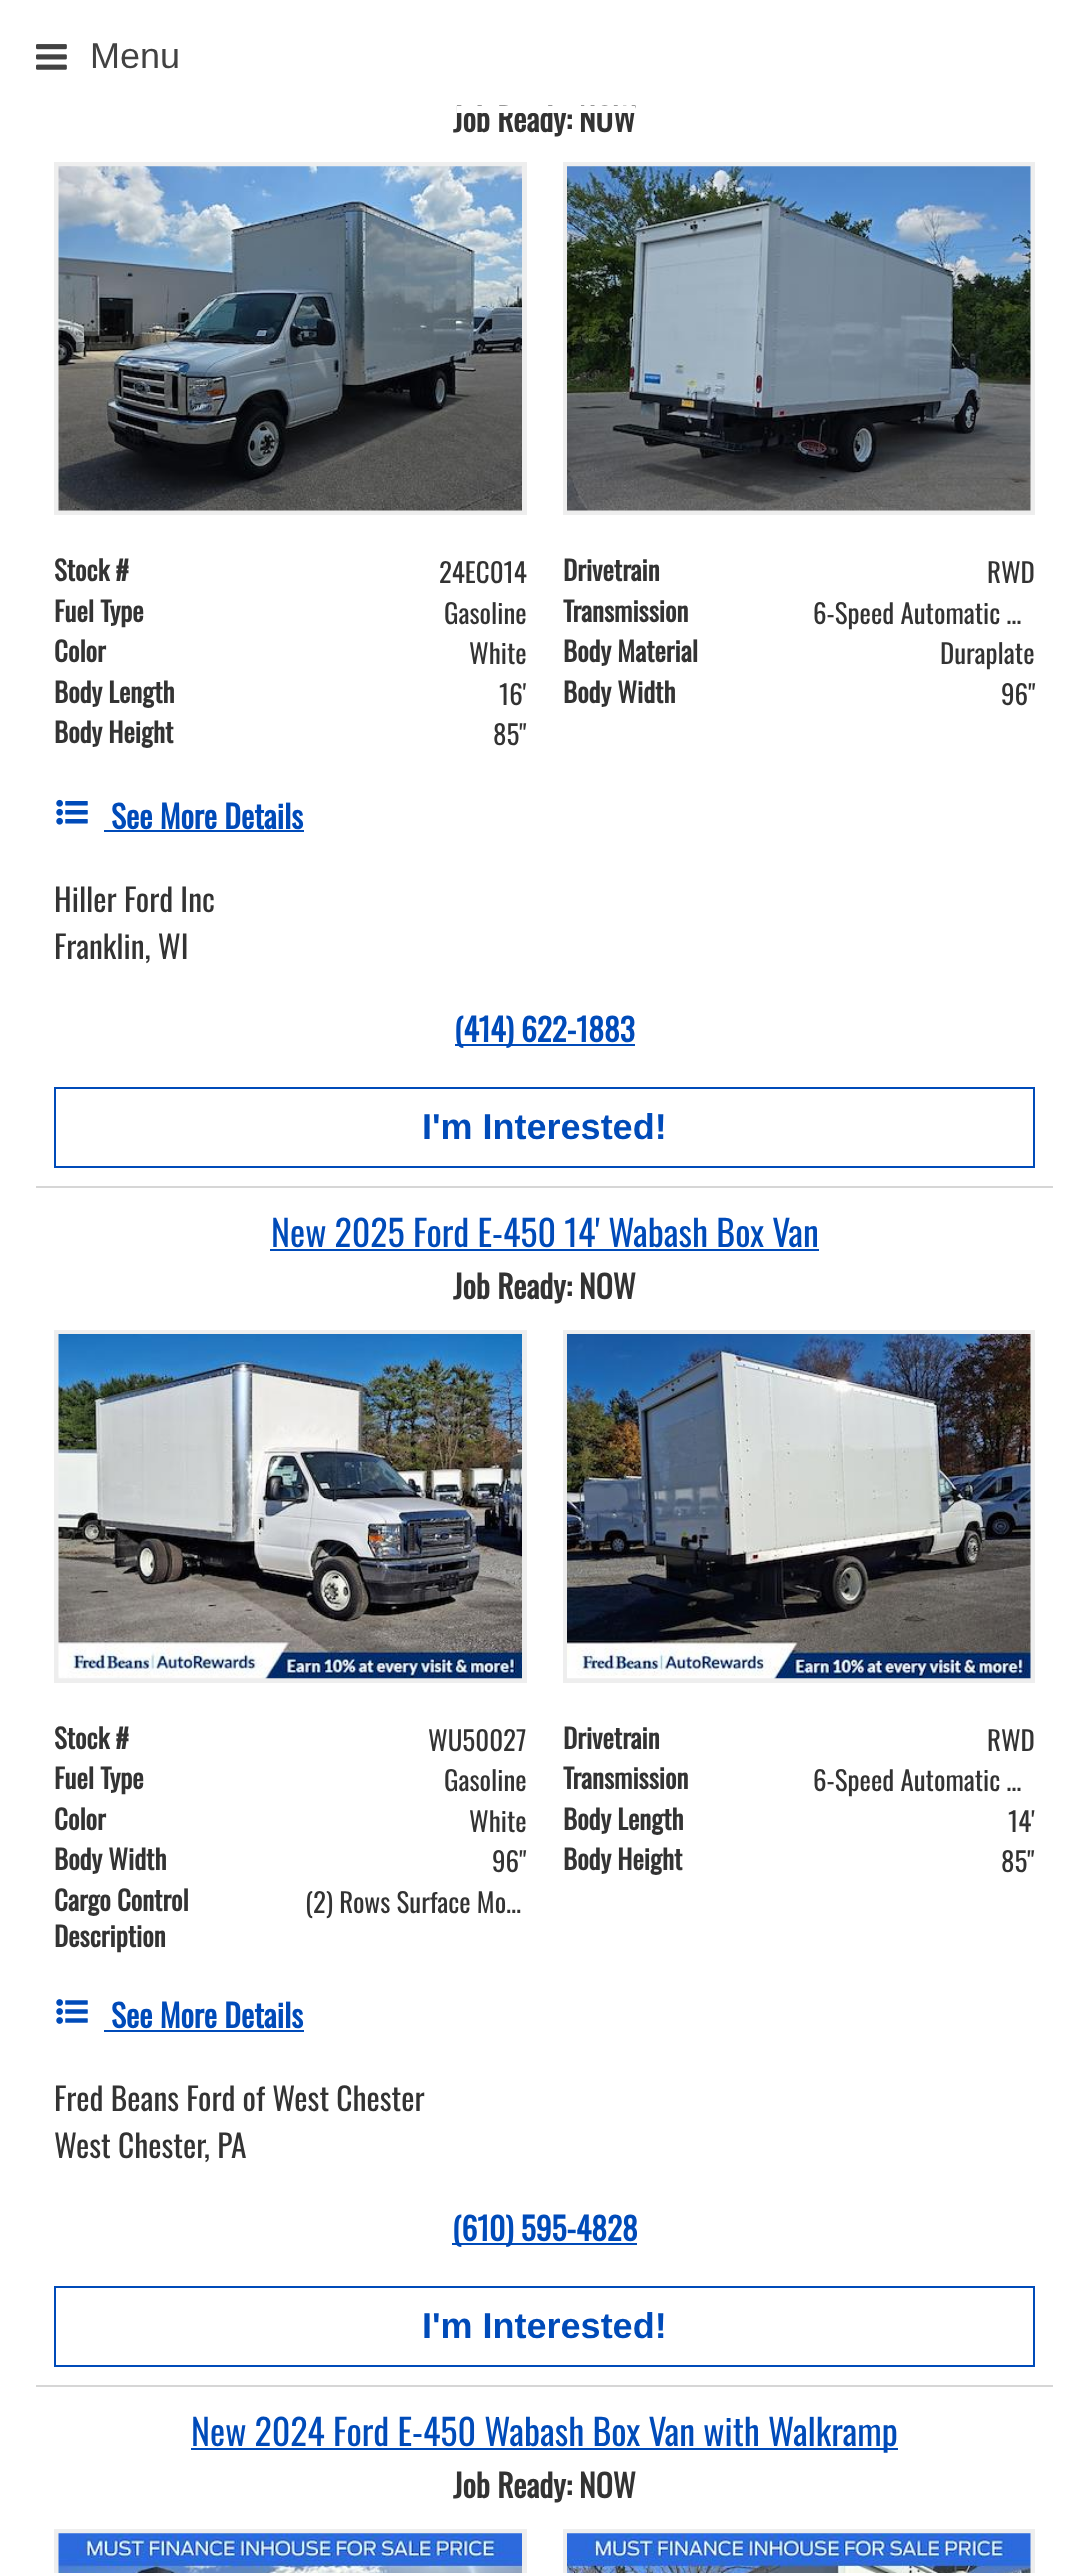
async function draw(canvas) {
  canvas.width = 1088;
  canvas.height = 2573;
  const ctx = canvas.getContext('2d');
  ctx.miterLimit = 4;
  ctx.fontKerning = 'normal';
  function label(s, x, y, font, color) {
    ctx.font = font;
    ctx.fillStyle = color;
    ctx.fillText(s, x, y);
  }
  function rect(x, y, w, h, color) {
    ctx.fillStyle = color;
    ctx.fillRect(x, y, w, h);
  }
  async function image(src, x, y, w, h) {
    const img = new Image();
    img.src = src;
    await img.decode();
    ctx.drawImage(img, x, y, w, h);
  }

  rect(0, 0, 1088, 2573, '#fff');
  label('Job Ready: NOW', 453, 132, 'bold 31.5px Oswald', '#333');
  rect(457, 106, 178, 7, '#fff');
  await image('assets/img1.png', 36, 44, 31, 26);
  label('Menu', 90, 68, '36px Liberation Sans', '#424242');
  rect(36, 1186, 1017, 2, '#d6d6d6');
  rect(54, 162, 473, 353, '#eee');
  await image('assets/img2.png', 58, 166, 464, 345);
  rect(563, 162, 472, 353, '#eee');
  await image('assets/img3.png', 567, 166, 464, 345);
  label('Stock #', 54, 581, 'bold 27px Oswald', '#333');
  label('24EC014', 439, 583, '27px Oswald', '#333');
  label('Drivetrain', 563, 581, 'bold 27px Oswald', '#333');
  label('RWD', 987, 583, '27px Oswald', '#333');
  label('Fuel Type', 54, 622, 'bold 27px Oswald', '#333');
  label('Gasoline', 444, 624, '27px Oswald', '#333');
  label('Transmission', 563, 622, 'bold 27px Oswald', '#333');
  label('6-Speed Automatic …', 813, 624, '27px Oswald', '#333');
  label('Color', 54, 662, 'bold 27px Oswald', '#333');
  label('White', 469, 664, '27px Oswald', '#333');
  label('Body Material', 563, 662, 'bold 27px Oswald', '#333');
  label('Duraplate', 940, 664, '27px Oswald', '#333');
  label('Body Length', 54, 703, 'bold 27px Oswald', '#333');
  label('16\'', 499, 705, '27px Oswald', '#333');
  label('Body Width', 563, 703, 'bold 27px Oswald', '#333');
  label('96"', 1001, 705, '27px Oswald', '#333');
  label('Body Height', 54, 743, 'bold 27px Oswald', '#333');
  label('85"', 493, 745, '27px Oswald', '#333');
  await image('assets/img4.png', 56, 799, 32, 26);
  label('See More Details', 111, 829, 'bold 31.5px Oswald', '#004bb9');
  rect(104, 830, 200, 2, '#004bb9');
  label('Hiller Ford Inc', 54, 912, '31.5px Oswald', '#333');
  label('Franklin, WI', 54, 959, '31.5px Oswald', '#333');
  rect(455, 1044, 180, 2, '#004bb9');
  label('(414) 622-1883', 454, 1042, 'bold 31.5px Oswald', '#004bb9');
  ctx.strokeStyle = '#004bb9';
  ctx.lineWidth = 2;
  ctx.strokeRect(55, 1088, 979, 79);
  label('I\'m Interested!', 422, 1139, 'bold 36px Liberation Sans', '#004bb9');
  rect(36, 2385, 1017, 2, '#d6d6d6');
  label('New 2025 Ford E-450 14\' Wabash Box Van', 271, 1247, '36px Oswald', '#004bb9');
  rect(270, 1249, 549, 2, '#004bb9');
  label('Job Ready: NOW', 453, 1299, 'bold 31.5px Oswald', '#333');
  rect(54, 1330, 473, 353, '#eee');
  await image('assets/img5.png', 58, 1334, 464, 345);
  rect(563, 1330, 472, 353, '#eee');
  await image('assets/img6.png', 567, 1334, 464, 345);
  label('Stock #', 54, 1749, 'bold 27px Oswald', '#333');
  label('WU50027', 428, 1751, '27px Oswald', '#333');
  label('Drivetrain', 563, 1749, 'bold 27px Oswald', '#333');
  label('RWD', 987, 1751, '27px Oswald', '#333');
  label('Fuel Type', 54, 1789, 'bold 27px Oswald', '#333');
  label('Gasoline', 444, 1791, '27px Oswald', '#333');
  label('Transmission', 563, 1789, 'bold 27px Oswald', '#333');
  label('6-Speed Automatic …', 813, 1791, '27px Oswald', '#333');
  label('Color', 54, 1830, 'bold 27px Oswald', '#333');
  label('White', 469, 1832, '27px Oswald', '#333');
  label('Body Length', 563, 1830, 'bold 27px Oswald', '#333');
  label('14\'', 1008, 1832, '27px Oswald', '#333');
  label('Body Width', 54, 1870, 'bold 27px Oswald', '#333');
  label('96"', 492, 1872, '27px Oswald', '#333');
  label('Body Height', 563, 1870, 'bold 27px Oswald', '#333');
  label('85"', 1001, 1872, '27px Oswald', '#333');
  label('Cargo Control', 54, 1911, 'bold 27px Oswald', '#333');
  label('Description', 54, 1947, 'bold 27px Oswald', '#333');
  label('(2) Rows Surface Mo…', 305, 1913, '27px Oswald', '#333');
  await image('assets/img7.png', 56, 1999, 32, 25);
  label('See More Details', 111, 2028, 'bold 31.5px Oswald', '#004bb9');
  rect(104, 2030, 200, 2, '#004bb9');
  label('Fred Beans Ford of West Chester', 54, 2111, '31.5px Oswald', '#333');
  label('West Chester, PA', 54, 2158, '31.5px Oswald', '#333');
  rect(452, 2243, 185, 2, '#004bb9');
  label('(610) 595-4828', 452, 2241, 'bold 31.5px Oswald', '#004bb9');
  ctx.strokeRect(55, 2287, 979, 79);
  label('I\'m Interested!', 422, 2338, 'bold 36px Liberation Sans', '#004bb9');
  rect(191, 2448, 707, 2, '#004bb9');
  label('New 2024 Ford E-450 Wabash Box Van with Walkramp', 191, 2446, '36px Oswald', '#004bb9');
  label('Job Ready: NOW', 453, 2498, 'bold 31.5px Oswald', '#333');
  rect(54, 2529, 473, 44, '#eee');
  await image('assets/img8.png', 58, 2533, 464, 40);
  rect(563, 2529, 472, 44, '#eee');
  await image('assets/img9.png', 567, 2533, 464, 40);
}

draw(document.querySelector('canvas'));
